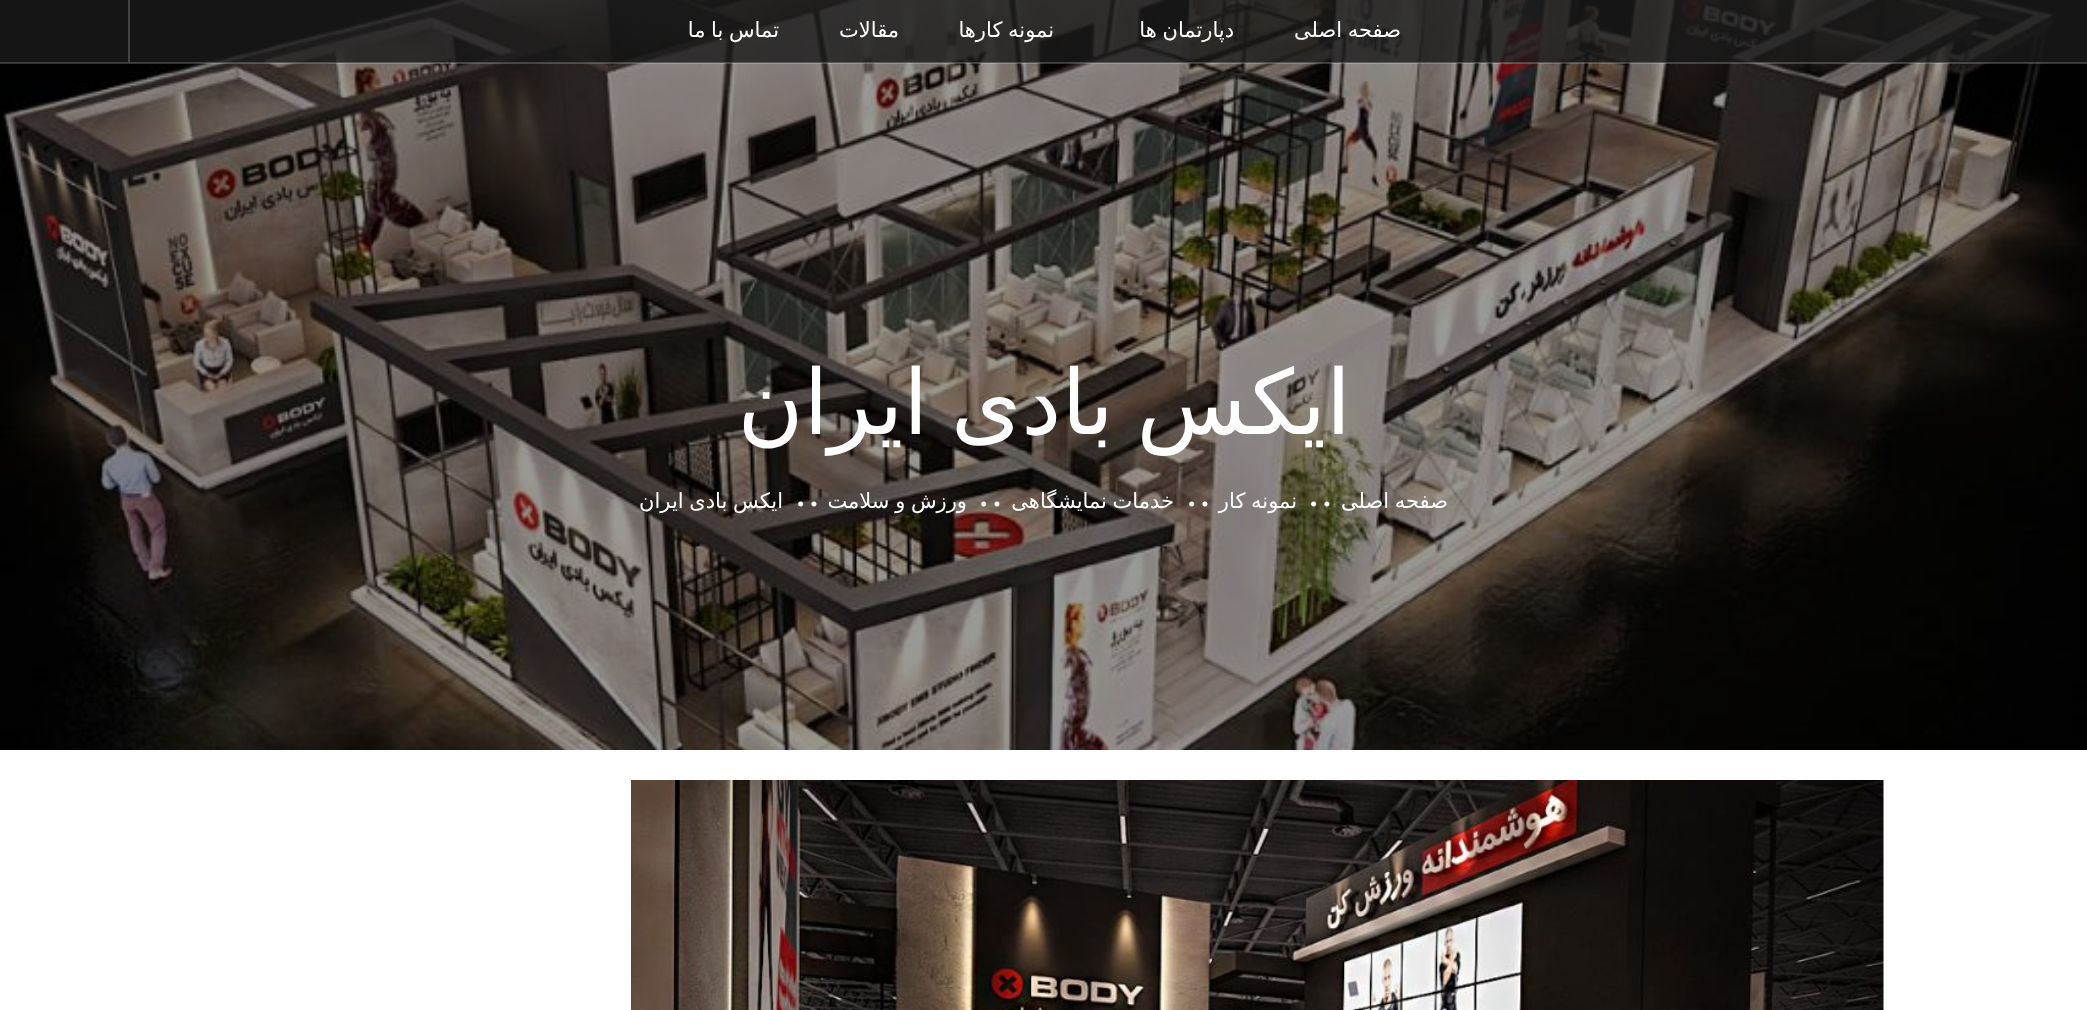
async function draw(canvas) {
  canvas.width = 2087;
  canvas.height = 1010;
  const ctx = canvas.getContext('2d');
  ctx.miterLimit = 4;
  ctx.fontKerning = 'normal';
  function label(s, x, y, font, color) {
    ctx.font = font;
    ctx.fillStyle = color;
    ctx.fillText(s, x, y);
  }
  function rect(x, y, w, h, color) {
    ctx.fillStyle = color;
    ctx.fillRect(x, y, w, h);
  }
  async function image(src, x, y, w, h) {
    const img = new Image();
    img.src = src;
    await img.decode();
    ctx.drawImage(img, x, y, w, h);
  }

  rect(0, 0, 2087, 1010, '#fff');
  await image('assets/img1.png', 0, 0, 2087, 750);
  rect(0, 0, 2087, 63, '#1a1a1acc');
  rect(0, 62, 2087, 2, '#ffffff33');
  ctx.wordSpacing = '-1px';
  ctx.direction = 'rtl';
  label('صفحه اصلی', 1401, 37, '21px DejaVu Sans', '#fff');
  label('دپارتمان ها', 1234, 37, '21px DejaVu Sans', '#fff');
  label('نمونه کارها', 1054, 37, '21px DejaVu Sans', '#fff');
  ctx.wordSpacing = '0px';
  label('مقالات', 899, 37, '21px DejaVu Sans', '#fff');
  ctx.wordSpacing = '-1px';
  label('تماس با ما', 779, 37, '21px DejaVu Sans', '#fff');
  rect(128, 0, 2, 62, '#444');
  ctx.wordSpacing = '-6px';
  label('ایکس بادی ایران', 1351, 434, '90px DejaVu Sans', '#fff');
  ctx.wordSpacing = '-1px';
  label('صفحه اصلی', 1448, 508, '21px DejaVu Sans', '#fff');
  ctx.letterSpacing = '6px';
  ctx.wordSpacing = '0px';
  ctx.direction = 'ltr';
  label('••', 1310, 511, '21px Liberation Serif', '#fff');
  ctx.letterSpacing = '0px';
  ctx.wordSpacing = '-1px';
  ctx.direction = 'rtl';
  label('نمونه کار', 1297, 508, '21px DejaVu Sans', '#fff');
  ctx.letterSpacing = '6px';
  ctx.wordSpacing = '0px';
  ctx.direction = 'ltr';
  label('••', 1188, 511, '21px Liberation Serif', '#fff');
  ctx.letterSpacing = '0px';
  ctx.wordSpacing = '-1px';
  ctx.direction = 'rtl';
  label('خدمات نمایشگاهی', 1174, 508, '21px DejaVu Sans', '#fff');
  ctx.letterSpacing = '6px';
  ctx.wordSpacing = '0px';
  ctx.direction = 'ltr';
  label('••', 980, 511, '21px Liberation Serif', '#fff');
  ctx.letterSpacing = '0px';
  ctx.wordSpacing = '-1px';
  ctx.direction = 'rtl';
  label('ورزش و سلامت', 967, 508, '21px DejaVu Sans', '#fff');
  ctx.letterSpacing = '6px';
  ctx.wordSpacing = '0px';
  ctx.direction = 'ltr';
  label('••', 797, 511, '21px Liberation Serif', '#fff');
  ctx.letterSpacing = '0px';
  ctx.wordSpacing = '-1px';
  ctx.direction = 'rtl';
  label('ایکس بادی ایران', 783, 508, '21px DejaVu Sans', '#fff');
  await image('assets/img2.png', 631, 780, 1253, 230);
}

draw(document.querySelector('canvas'));
